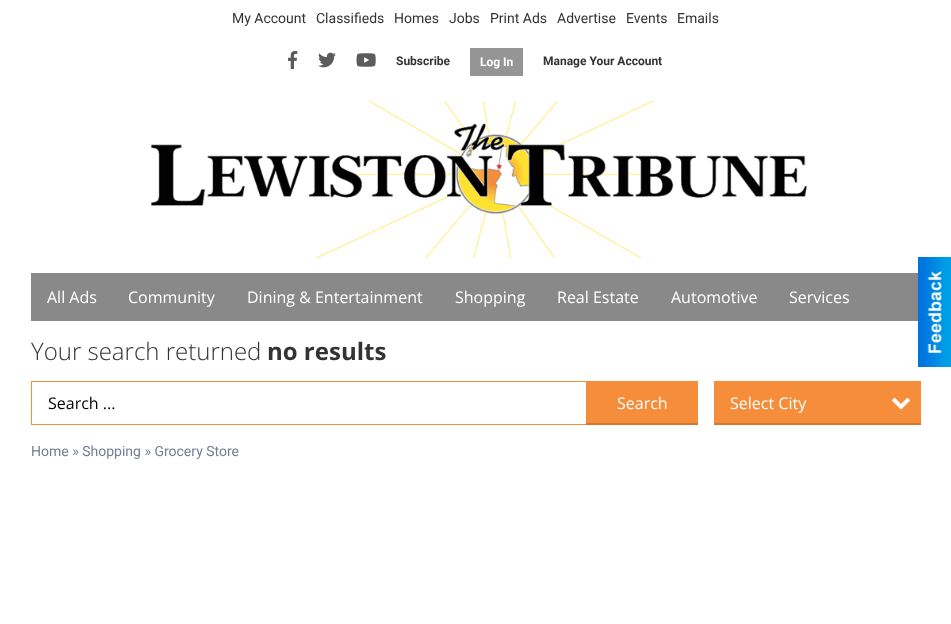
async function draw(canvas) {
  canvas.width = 951;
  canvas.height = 624;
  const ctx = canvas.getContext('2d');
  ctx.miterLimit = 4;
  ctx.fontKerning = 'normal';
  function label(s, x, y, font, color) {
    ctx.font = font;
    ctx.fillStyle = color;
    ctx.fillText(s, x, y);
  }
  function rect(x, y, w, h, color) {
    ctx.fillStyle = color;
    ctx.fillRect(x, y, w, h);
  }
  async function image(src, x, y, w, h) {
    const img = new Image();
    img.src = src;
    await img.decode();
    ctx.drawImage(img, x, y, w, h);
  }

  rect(0, 0, 951, 624, '#fff');
  label('My Account', 232, 23, '14px Roboto', '#333');
  label('Classifieds', 316, 23, '14px Roboto', '#333');
  label('Homes', 394, 23, '14px Roboto', '#333');
  label('Jobs', 449, 23, '14px Roboto', '#333');
  label('Print Ads', 490, 23, '14px Roboto', '#333');
  label('Advertise', 557, 23, '14px Roboto', '#333');
  label('Events', 626, 23, '14px Roboto', '#333');
  label('Emails', 677, 23, '14px Roboto', '#333');
  await image('assets/img1.png', 288, 51, 10, 18);
  await image('assets/img2.png', 318, 52, 18, 16);
  await image('assets/img3.png', 356, 53, 20, 14);
  label('Subscribe', 396, 65, 'bold 12px Roboto', '#333');
  rect(470, 48, 53, 28, '#959595');
  label('Log In', 480, 66, 'bold 12px Roboto', '#fff');
  label('Manage Your Account', 543, 65, 'bold 12px Roboto', '#333');
  await image('assets/img4.png', 150, 101, 658, 157);
  rect(31, 273, 887, 48, '#898989');
  label('All Ads', 47, 303, '16px Open Sans', '#fff');
  label('Community', 128, 303, '16px Open Sans', '#fff');
  label('Dining & Entertainment', 247, 303, '16px Open Sans', '#fff');
  label('Shopping', 455, 303, '16px Open Sans', '#fff');
  label('Real Estate', 557, 303, '16px Open Sans', '#fff');
  label('Automotive', 671, 303, '16px Open Sans', '#fff');
  label('Services', 789, 303, '16px Open Sans', '#fff');
  label('Your search returned', 31, 360, '300 24px Open Sans', '#333');
  label('no results', 267, 360, 'bold 24px Open Sans', '#333');
  ctx.strokeStyle = '#f58d3a';
  ctx.strokeRect(31.5, 381.5, 666, 43);
  label('Search ...', 48, 409, '16px Open Sans', '#000');
  rect(586, 382, 111, 41, '#f58d3a');
  rect(586, 423, 112, 2, '#d07831');
  label('Search', 617, 409, '16px Open Sans', '#fff');
  rect(714, 381, 207, 42, '#f58d3a');
  rect(714, 423, 207, 2, '#d07831');
  label('Select City', 730, 409, '16px Open Sans', '#fff');
  await image('assets/img5.png', 892, 397, 18, 13);
  label('Home » Shopping » Grocery Store', 31, 456, '14px Roboto', '#707f94');
  await image('assets/img6.png', 918, 257, 33, 110);
}

draw(document.querySelector('canvas'));
